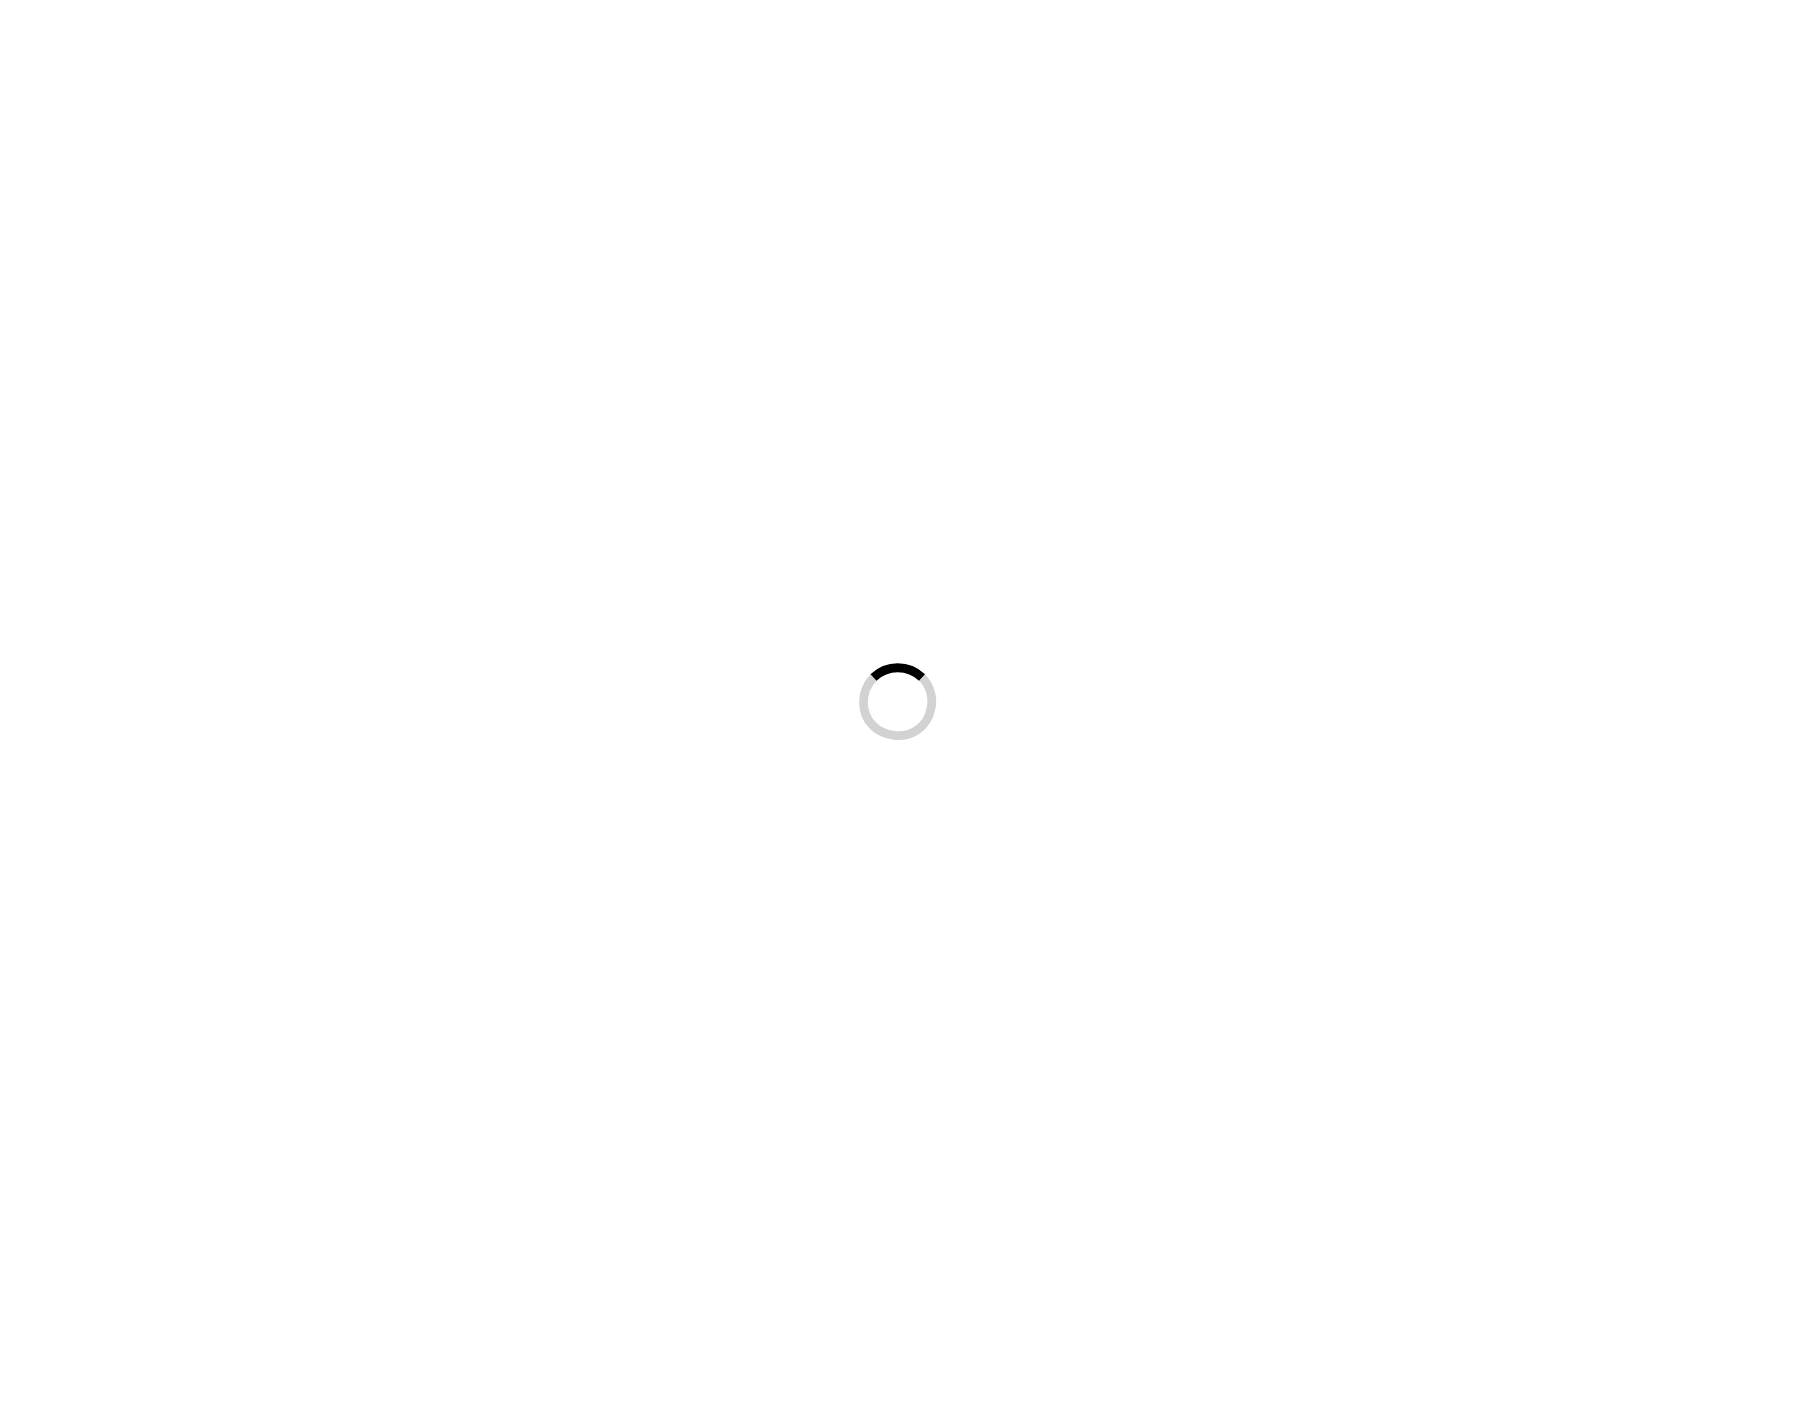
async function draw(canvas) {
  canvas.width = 1793;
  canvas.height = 1402;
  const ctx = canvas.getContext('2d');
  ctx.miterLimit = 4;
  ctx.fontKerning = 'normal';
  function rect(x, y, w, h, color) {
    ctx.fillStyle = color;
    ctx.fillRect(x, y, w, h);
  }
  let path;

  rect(0, 0, 1793, 1402, '#fff');
  path = new Path2D('M873.5 677.5C887 664.5 908.5 664.5 922 677.5');
  ctx.strokeStyle = '#000';
  ctx.lineWidth = 8.8;
  ctx.stroke(path);
  path = new Path2D('M922 677.5C930 685.5 933.5 697.5 931 708.5C923 748.5 863.5 742.5 863.5 702C863.5 693 867.5 684 873.5 677.5');
  ctx.strokeStyle = '#1d1d1d33';
  ctx.stroke(path);
}

draw(document.querySelector('canvas'));
